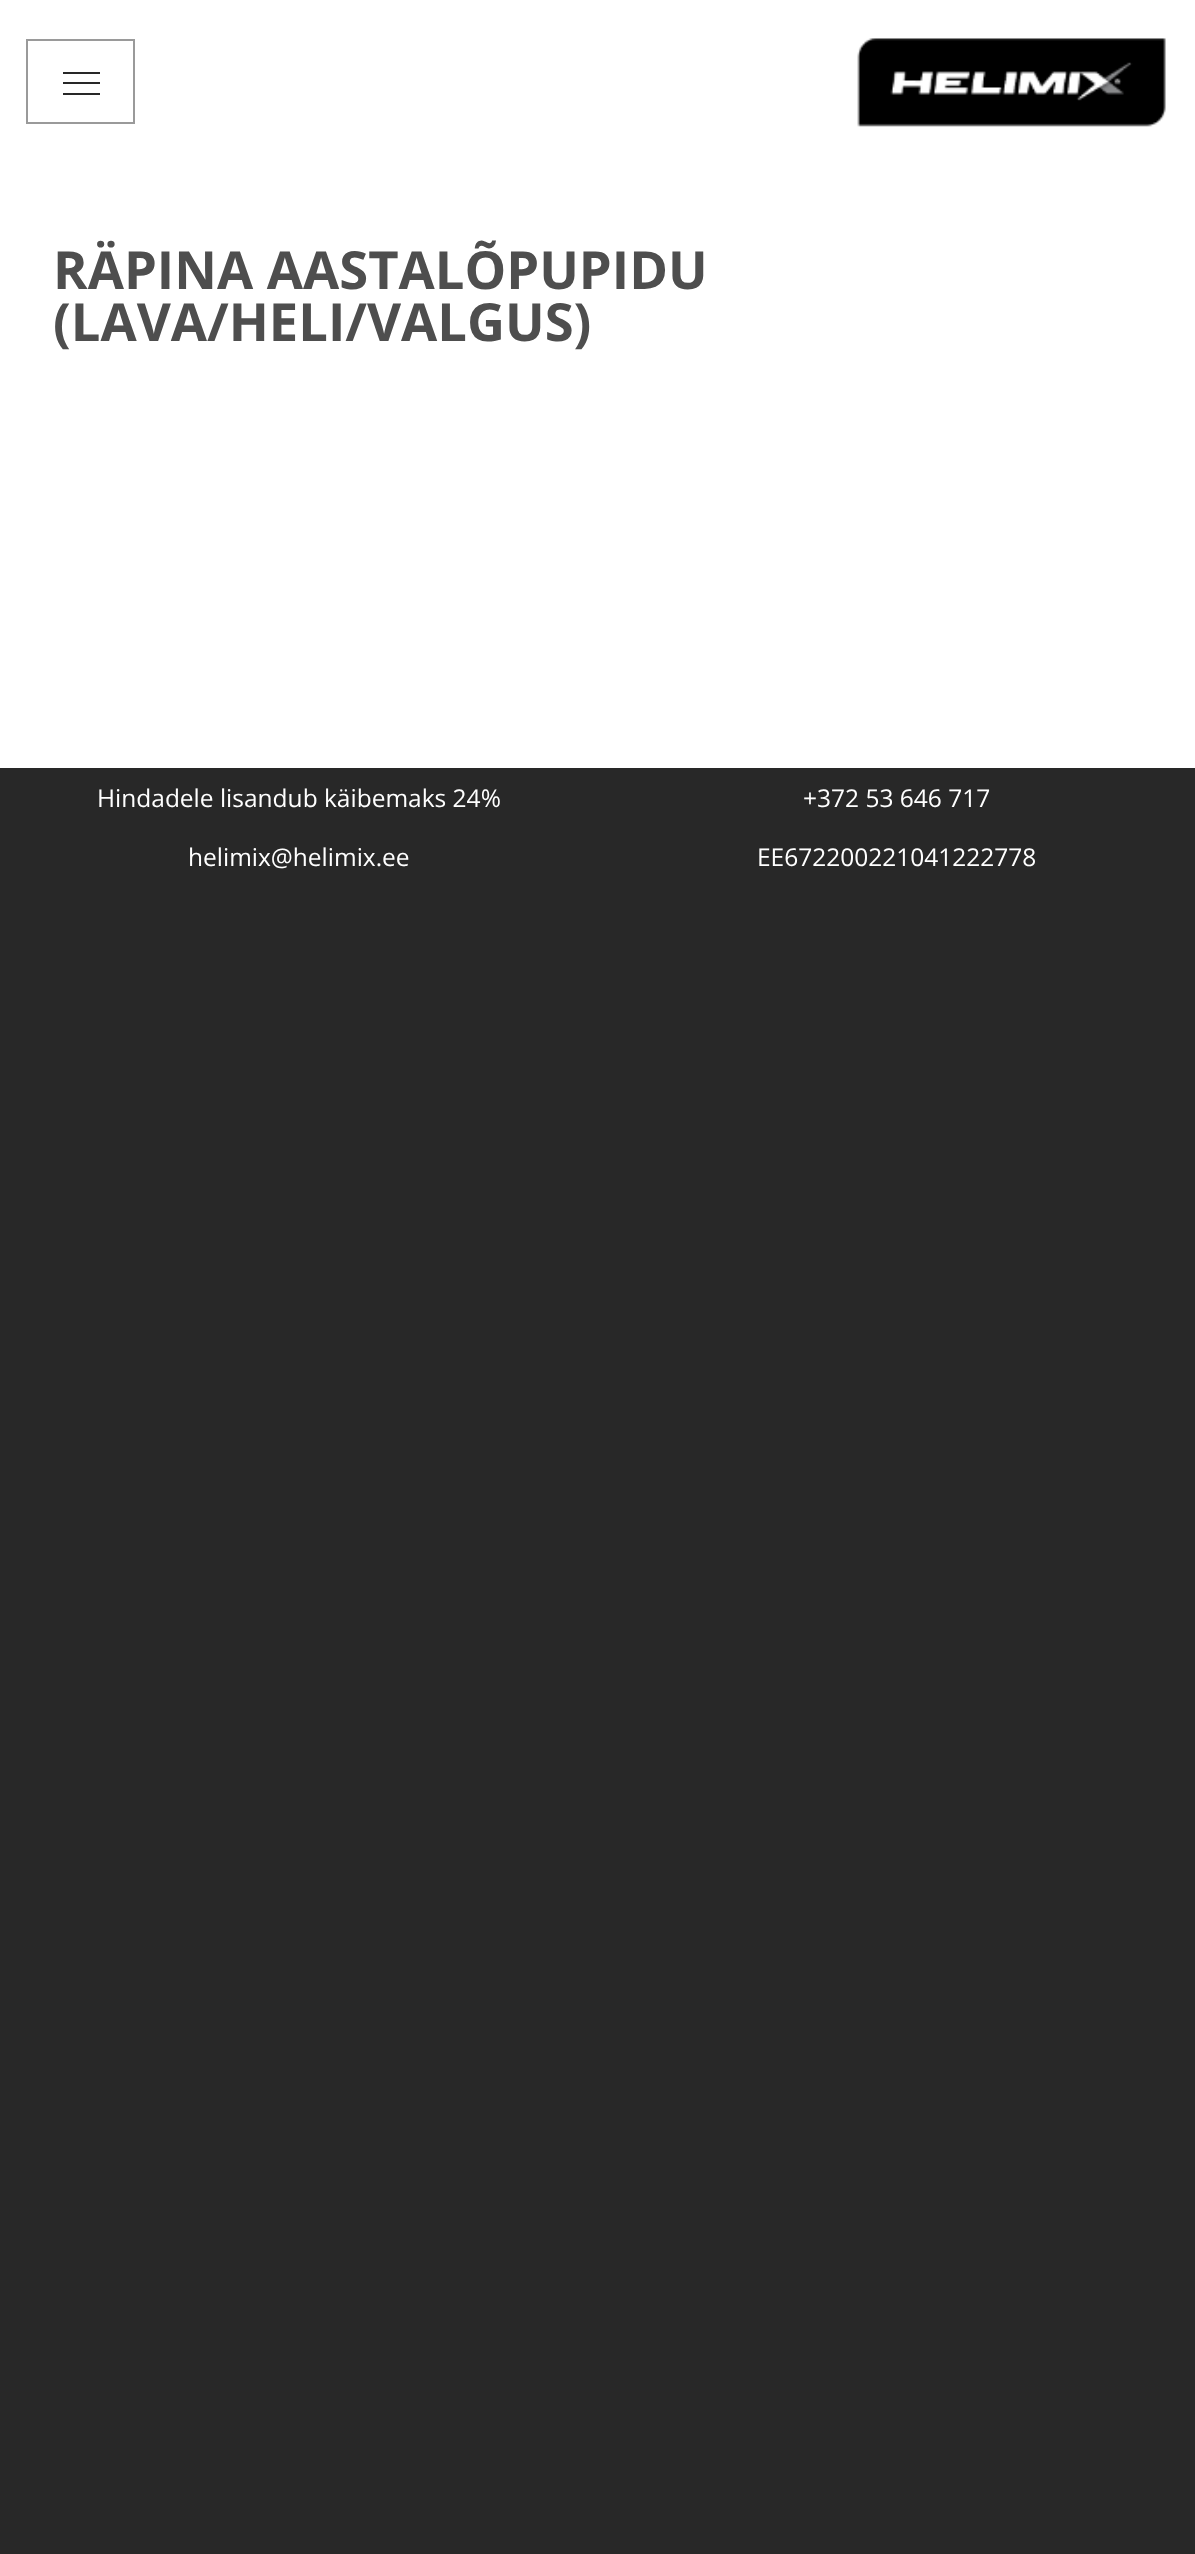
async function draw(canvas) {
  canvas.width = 1195;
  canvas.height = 2554;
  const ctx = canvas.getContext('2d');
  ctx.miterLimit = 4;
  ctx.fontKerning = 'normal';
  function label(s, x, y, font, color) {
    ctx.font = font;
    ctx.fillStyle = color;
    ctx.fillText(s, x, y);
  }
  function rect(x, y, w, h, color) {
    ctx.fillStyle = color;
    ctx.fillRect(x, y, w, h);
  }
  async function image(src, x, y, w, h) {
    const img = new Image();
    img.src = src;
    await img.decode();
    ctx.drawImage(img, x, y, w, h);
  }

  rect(0, 0, 1195, 2554, '#282828');
  rect(0, 0, 1195, 768, '#fff');
  ctx.strokeStyle = '#9a9a9a';
  ctx.lineWidth = 2;
  ctx.strokeRect(27, 40, 107, 83);
  rect(63, 72, 37, 2, '#282828');
  rect(63, 82, 37, 2, '#282828');
  rect(63, 93, 37, 2, '#282828');
  await image('assets/img1.png', 857, 38, 309, 89);
  label('RÄPINA AASTALÕPUPIDU', 53, 289, 'bold 52.5px Open Sans', '#4e4e4e');
  label('(LAVA/HELI/VALGUS)', 53, 341, 'bold 52.5px Open Sans', '#4e4e4e');
  label('Hindadele lisandub käibemaks 24%', 97, 807, '24.5px Open Sans', '#fff');
  label('+372 53 646 717', 803, 807, '24.5px Open Sans', '#fff');
  label('helimix@helimix.ee', 188, 866, '24.5px Open Sans', '#fff');
  label('EE672200221041222778', 757, 866, '24.5px Open Sans', '#fff');
}

draw(document.querySelector('canvas'));
